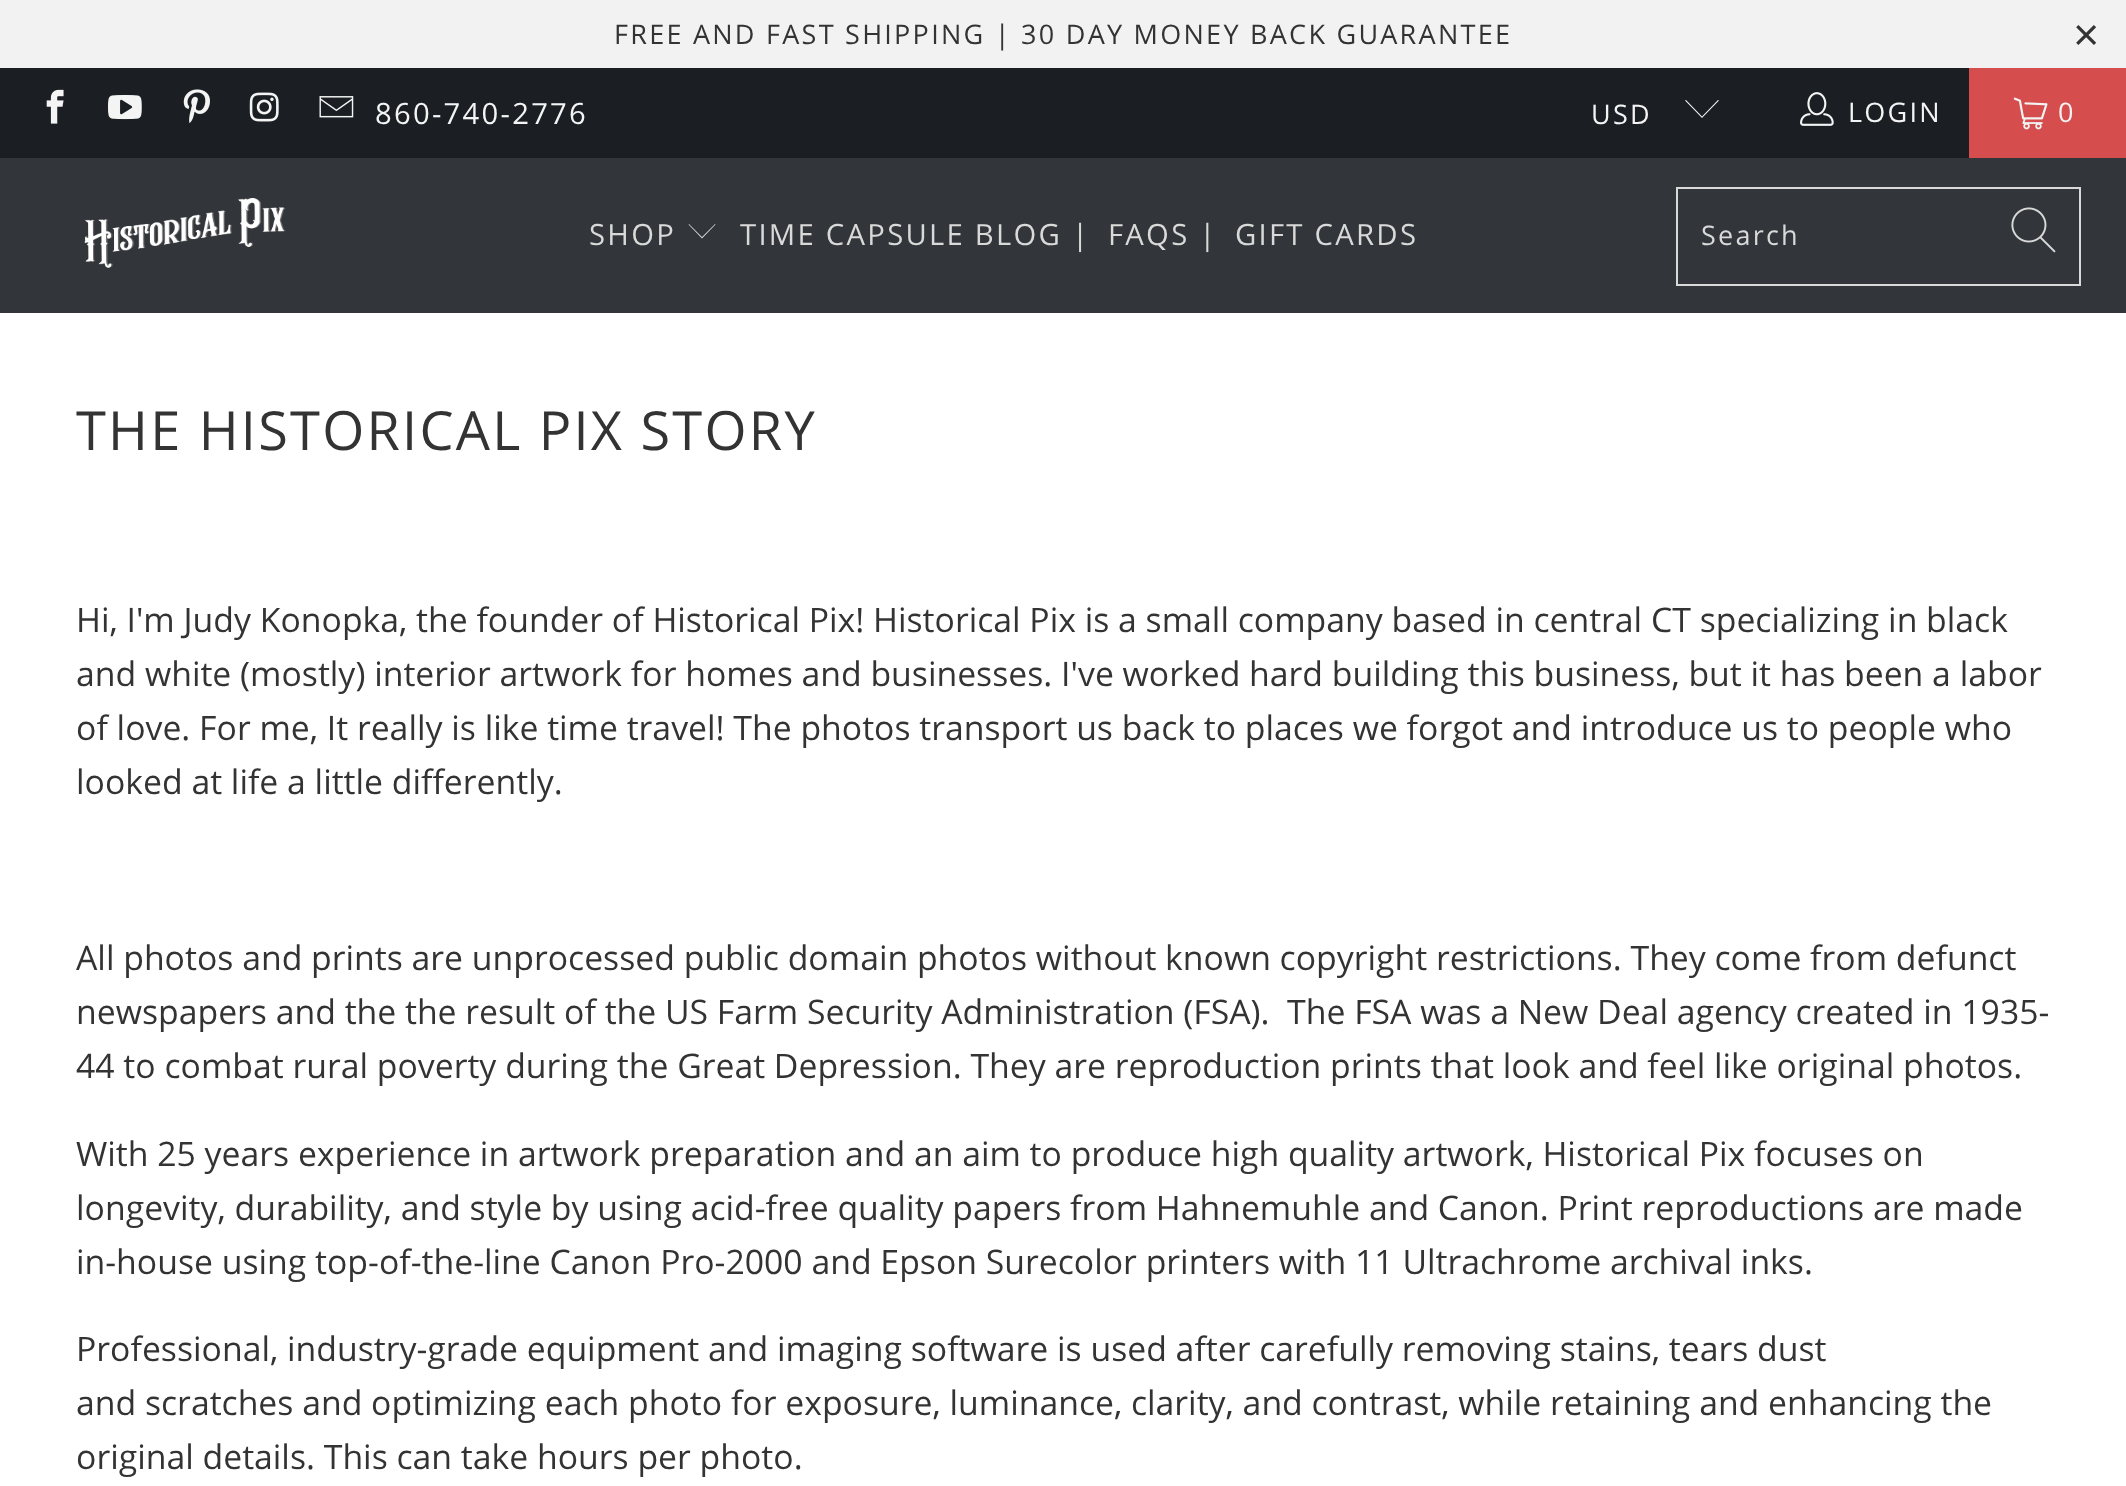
async function draw(canvas) {
  canvas.width = 2126;
  canvas.height = 1486;
  const ctx = canvas.getContext('2d');
  ctx.miterLimit = 4;
  ctx.fontKerning = 'normal';
  function label(s, x, y, font, color) {
    ctx.font = font;
    ctx.fillStyle = color;
    ctx.fillText(s, x, y);
  }
  function rect(x, y, w, h, color) {
    ctx.fillStyle = color;
    ctx.fillRect(x, y, w, h);
  }
  async function image(src, x, y, w, h) {
    const img = new Image();
    img.src = src;
    await img.decode();
    ctx.drawImage(img, x, y, w, h);
  }
  let path;

  rect(0, 0, 2126, 1486, '#fff');
  rect(0, 0, 2126, 68, '#f2f2f2');
  ctx.letterSpacing = '2.25px';
  label('FREE AND FAST SHIPPING | 30 DAY MONEY BACK GUARANTEE', 614, 44, '27px Open Sans', '#333');
  label('×', 2073, 50, '45px Liberation Sans', '#333');
  rect(0, 68, 1969, 90, '#1b1f23');
  await image('assets/img1.png', 46, 89, 18, 35);
  await image('assets/img2.png', 108, 95, 34, 25);
  await image('assets/img3.png', 183, 89, 27, 34);
  await image('assets/img4.png', 249, 92, 30, 30);
  await image('assets/img5.png', 319, 96, 35, 22);
  label('860-740-2776', 375, 124, '29.25px Open Sans', '#f4f4f4');
  label('USD', 1591, 124, '27px Open Sans', '#f4f4f4');
  path = new Path2D('M1702 118L1685 100.5L1686 100L1702 116.5L1718 100L1719 100.5Z');
  ctx.fill(path);
  await image('assets/img6.png', 1800, 92, 34, 34);
  label('LOGIN', 1848, 122, '27px Open Sans', '#f4f4f4');
  rect(1969, 68, 157, 90, '#d54d4d');
  await image('assets/img7.png', 2013, 97, 35, 33);
  label('0', 2058, 122, '27px Open Sans', '#f4f4f4');
  rect(0, 158, 2126, 155, '#323539');
  await image('assets/img8.png', 84, 198, 202, 70);
  label('SHOP', 589, 245, '29.25px Open Sans', '#d9d9d9');
  path = new Path2D('M702 238.5L688.5 224.5L689 224L702 237L715 224L715.5 224.5Z');
  ctx.fill(path);
  label('TIME CAPSULE BLOG |', 740, 245, '29.25px Open Sans', '#d9d9d9');
  label('FAQS |', 1108, 245, '29.25px Open Sans', '#d9d9d9');
  label('GIFT CARDS', 1235, 245, '29.25px Open Sans', '#d9d9d9');
  ctx.strokeStyle = '#d9d9d9';
  ctx.lineWidth = 2;
  ctx.strokeRect(1677, 188, 403, 97);
  label('Search', 1701, 245, '27px Open Sans', '#d9d9d9');
  await image('assets/img9.png', 2011, 207, 45, 46);
  label('THE HISTORICAL PIX STORY', 76, 450, '54px Open Sans', '#333');
  ctx.letterSpacing = '0px';
  label('Hi, I\'m Judy Konopka, the founder of Historical Pix! Historical Pix is a small company based in central CT specializing in black', 76, 632, '33.75px Open Sans', '#333');
  label('and white (mostly) interior artwork for homes and businesses. I\'ve worked hard building this business, but it has been a labor', 76, 686, '33.75px Open Sans', '#333');
  label('of love. For me, It really is like time travel! The photos transport us back to places we forgot and introduce us to people who', 76, 740, '33.75px Open Sans', '#333');
  label('looked at life a little differently.', 76, 794, '33.75px Open Sans', '#333');
  label('All photos and prints are unprocessed public domain photos without known copyright restrictions. They come from defunct', 76, 970, '33.75px Open Sans', '#333');
  label('newspapers and the the result of the US Farm Security Administration (FSA).  The FSA was a New Deal agency created in 1935-', 76, 1024, '33.75px Open Sans', '#333');
  label('44 to combat rural poverty during the Great Depression. They are reproduction prints that look and feel like original photos.', 76, 1078, '33.75px Open Sans', '#333');
  label('With 25 years experience in artwork preparation and an aim to produce high quality artwork, Historical Pix focuses on', 76, 1166, '33.75px Open Sans', '#333');
  label('longevity, durability, and style by using acid-free quality papers from Hahnemuhle and Canon. Print reproductions are made', 76, 1220, '33.75px Open Sans', '#333');
  label('in-house using top-of-the-line Canon Pro-2000 and Epson Surecolor printers with 11 Ultrachrome archival inks.', 76, 1274, '33.75px Open Sans', '#333');
  label('Professional, industry-grade equipment and imaging software is used after carefully removing stains, tears dust', 76, 1361, '33.75px Open Sans', '#333');
  label('and scratches and optimizing each photo for exposure, luminance, clarity, and contrast, while retaining and enhancing the', 76, 1415, '33.75px Open Sans', '#333');
  label('original details. This can take hours per photo.', 76, 1469, '33.75px Open Sans', '#333');
}

draw(document.querySelector('canvas'));
